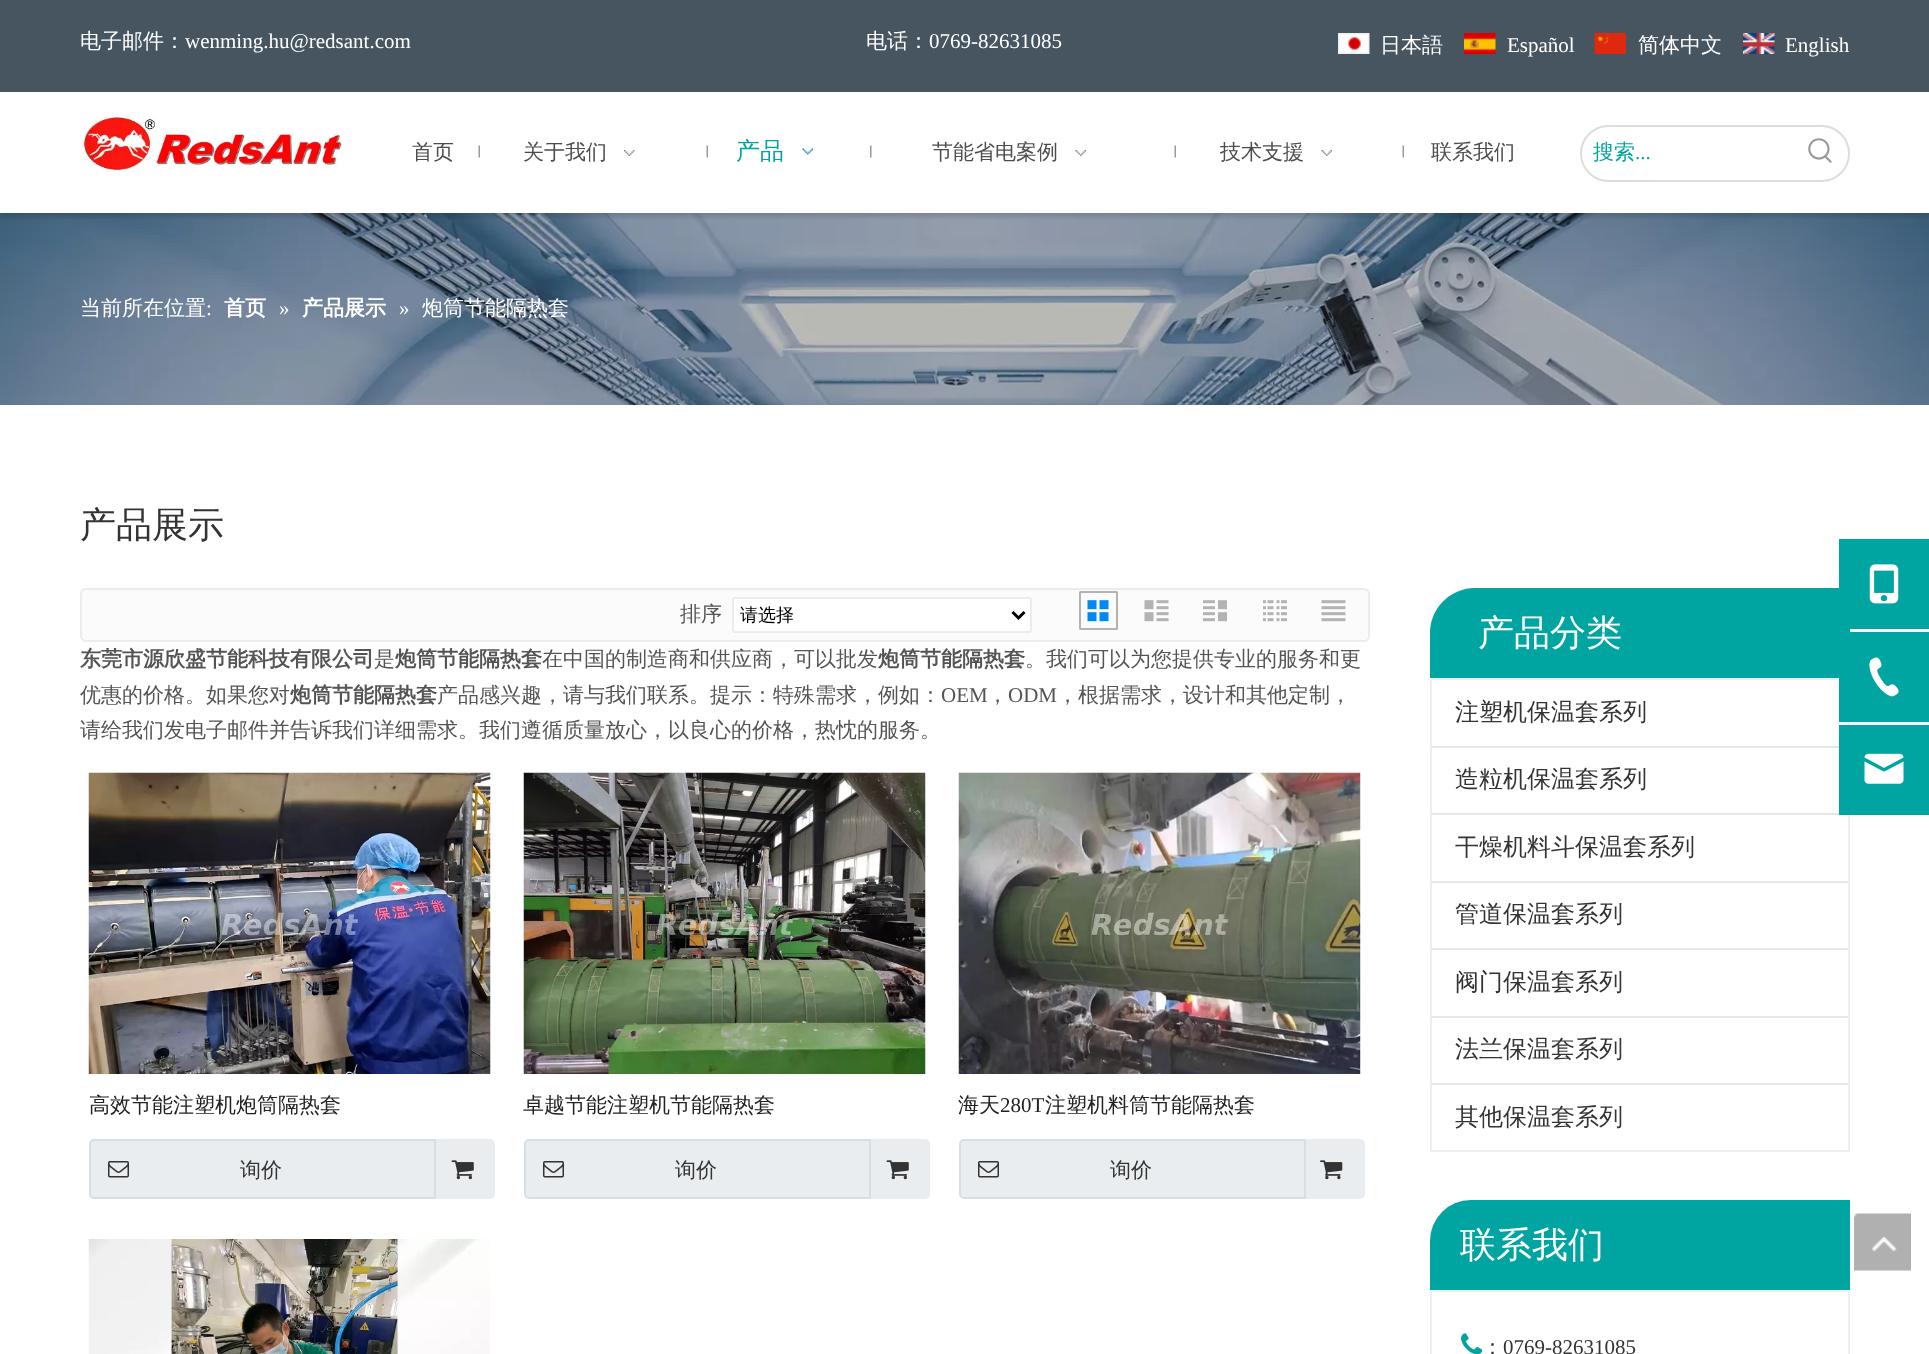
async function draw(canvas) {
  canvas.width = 1929;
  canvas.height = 1354;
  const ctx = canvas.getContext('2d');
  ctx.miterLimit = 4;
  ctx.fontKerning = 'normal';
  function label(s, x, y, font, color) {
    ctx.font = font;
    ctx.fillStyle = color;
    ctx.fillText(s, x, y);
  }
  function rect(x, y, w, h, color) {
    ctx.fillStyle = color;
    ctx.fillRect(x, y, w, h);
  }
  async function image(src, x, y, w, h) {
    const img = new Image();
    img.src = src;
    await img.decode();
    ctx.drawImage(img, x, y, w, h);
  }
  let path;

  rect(0, 0, 1929, 1354, '#fff');
  rect(0, 0, 1929, 92, '#465560');
  label('电子邮件：', 80, 48, '500 21px WenQuanYi Zen Hei', '#fff');
  label('wenming.hu@redsant.com', 185, 48, '21px Liberation Serif', '#fff');
  label('电话：', 866, 48, '500 21px WenQuanYi Zen Hei', '#fff');
  label('0769-82631085', 929, 48, '21px Liberation Serif', '#fff');
  await image('assets/img1.png', 1338, 33, 32, 21);
  label('日本語', 1380, 52, '500 21px WenQuanYi Zen Hei', '#fff');
  await image('assets/img2.png', 1464, 33, 32, 21);
  label('Español', 1507, 52, '21px Liberation Serif', '#fff');
  await image('assets/img3.png', 1594, 33, 32, 21);
  label('简体中文', 1638, 52, '500 21px WenQuanYi Zen Hei', '#fff');
  await image('assets/img4.png', 1743, 33, 32, 21);
  label('English', 1785, 52, '21px Liberation Serif', '#fff');
  await image('assets/img13.png', 0, 213, 1929, 192);
  ctx.save();
  ctx.beginPath();
  ctx.rect(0, 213, 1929, 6);
  ctx.clip();
  ctx.fillStyle = '#00000029';
  ctx.filter = 'blur(3px)';
  ctx.beginPath();
  ctx.rect(0, 95, 1929, 121);
  ctx.fill();
  ctx.filter = 'none';
  ctx.restore();
  await image('assets/img5.png', 81, 117, 264, 55);
  label('首页', 412, 159, '500 21px WenQuanYi Zen Hei', '#4d4d4d');
  await image('assets/img6.png', 478, 145, 2, 13);
  label('关于我们', 523, 159, '500 21px WenQuanYi Zen Hei', '#4d4d4d');
  await image('assets/img7.png', 624, 150, 11, 6);
  await image('assets/img6.png', 706, 145, 2, 13);
  label('产品', 736, 159, '500 24px WenQuanYi Zen Hei', '#00a4a1');
  await image('assets/img8.png', 802, 148, 11, 7);
  await image('assets/img9.png', 870, 145, 2, 13);
  label('节能省电案例', 932, 159, '500 21px WenQuanYi Zen Hei', '#4d4d4d');
  await image('assets/img10.png', 1075, 150, 11, 6);
  await image('assets/img6.png', 1174, 145, 2, 13);
  label('技术支援', 1220, 159, '500 21px WenQuanYi Zen Hei', '#4d4d4d');
  await image('assets/img11.png', 1321, 150, 11, 6);
  await image('assets/img6.png', 1402, 145, 2, 13);
  label('联系我们', 1431, 159, '500 21px WenQuanYi Zen Hei', '#4d4d4d');
  ctx.beginPath();
  ctx.roundRect(1581, 126, 268, 55, 27.5);
  ctx.strokeStyle = '#ddd';
  ctx.lineWidth = 2;
  ctx.stroke();
  label('搜索', 1593, 159, '500 21px WenQuanYi Zen Hei', '#00a4a1');
  label('...', 1635, 159, '21px Liberation Serif', '#00a4a1');
  await image('assets/img12.png', 1808, 138, 24, 25);
  label('当前所在位置', 80, 315, '500 21px WenQuanYi Zen Hei', '#fff');
  label(':', 206, 315, '21px Liberation Serif', '#fff');
  label('首页', 224, 315, 'bold 21px WenQuanYi Zen Hei', '#fff');
  label('»', 279, 315, '21px Liberation Serif', '#fff');
  label('产品展示', 302, 315, 'bold 21px WenQuanYi Zen Hei', '#fff');
  label('»', 399, 315, '21px Liberation Serif', '#fff');
  label('炮筒节能隔热套', 422, 315, '500 21px WenQuanYi Zen Hei', '#fff');
  label('产品展示', 80, 537, '500 36px WenQuanYi Zen Hei', '#333');
  ctx.fillStyle = '#fbfbfb';
  ctx.beginPath();
  ctx.roundRect(81, 589, 1288, 52, 5);
  ctx.fill();
  ctx.strokeStyle = '#ececec';
  ctx.stroke();
  label('排序', 680, 621, '500 21px WenQuanYi Zen Hei', '#545454');
  ctx.fillStyle = '#fff';
  ctx.beginPath();
  ctx.roundRect(733, 598, 298, 34, 2);
  ctx.fill();
  ctx.stroke();
  path = new Path2D('M1012.5 612L1018.5 618L1024.5 612');
  ctx.strokeStyle = '#000';
  ctx.lineWidth = 3;
  ctx.stroke(path);
  label('请选择', 740, 621, '500 18px WenQuanYi Zen Hei', '#000');
  ctx.beginPath();
  ctx.roundRect(1080, 592, 37, 37, 0.5);
  ctx.strokeStyle = '#b3b3b3';
  ctx.lineWidth = 2;
  ctx.stroke();
  await image('assets/img14.png', 1087, 600, 22, 22);
  await image('assets/img15.png', 1144, 600, 25, 22);
  await image('assets/img16.png', 1203, 600, 24, 22);
  await image('assets/img17.png', 1263, 600, 24, 22);
  await image('assets/img18.png', 1321, 600, 25, 22);
  label('东莞市源欣盛节能科技有限公司', 80, 666, 'bold 21px WenQuanYi Zen Hei', '#545454');
  label('是', 374, 666, '500 21px WenQuanYi Zen Hei', '#545454');
  label('炮筒节能隔热套', 395, 666, 'bold 21px WenQuanYi Zen Hei', '#545454');
  label('在中国的制造商和供应商，可以批发', 542, 666, '500 21px WenQuanYi Zen Hei', '#545454');
  label('炮筒节能隔热套', 878, 666, 'bold 21px WenQuanYi Zen Hei', '#545454');
  label('。我们可以为您提供专业的服务和更', 1025, 666, '500 21px WenQuanYi Zen Hei', '#545454');
  label('优惠的价格。如果您对', 80, 702, '500 21px WenQuanYi Zen Hei', '#545454');
  label('炮筒节能隔热套', 290, 702, 'bold 21px WenQuanYi Zen Hei', '#545454');
  label('产品感兴趣，请与我们联系。提示：特殊需求，例如：', 437, 702, '500 21px WenQuanYi Zen Hei', '#545454');
  label('OEM', 941, 702, '21px Liberation Serif', '#545454');
  label('，', 987, 702, '500 21px WenQuanYi Zen Hei', '#545454');
  label('ODM', 1008, 702, '21px Liberation Serif', '#545454');
  label('，根据需求，设计和其他定制，', 1057, 702, '500 21px WenQuanYi Zen Hei', '#545454');
  label('请给我们发电子邮件并告诉我们详细需求。我们遵循质量放心，以良心的价格，热忱的服务。', 80, 737, '500 21px WenQuanYi Zen Hei', '#545454');
  await image('assets/img19.png', 88, 772, 403, 302);
  label('高效节能注塑机炮筒隔热套', 89, 1112, '500 21px WenQuanYi Zen Hei', '#222');
  ctx.fillStyle = '#eaedef';
  ctx.beginPath();
  ctx.roundRect(90, 1140, 403, 58, 4);
  ctx.fill();
  ctx.strokeStyle = '#d8dde6';
  ctx.stroke();
  await image('assets/img20.png', 108, 1161, 21, 17);
  label('询价', 240, 1177, '500 21px WenQuanYi Zen Hei', '#333');
  ctx.fillStyle = '#eaedef';
  ctx.beginPath();
  ctx.roundRect(434, 1139, 61, 60, [0, 5, 5, 0]);
  ctx.fill();
  rect(434, 1139, 2, 60, '#d8dde6');
  await image('assets/img21.png', 451, 1160, 23, 20);
  await image('assets/img22.png', 523, 772, 403, 302);
  label('卓越节能注塑机节能隔热套', 523, 1112, '500 21px WenQuanYi Zen Hei', '#222');
  ctx.fillStyle = '#eaedef';
  ctx.beginPath();
  ctx.roundRect(525, 1140, 403, 58, 4);
  ctx.fill();
  ctx.stroke();
  await image('assets/img20.png', 543, 1161, 21, 17);
  label('询价', 675, 1177, '500 21px WenQuanYi Zen Hei', '#333');
  ctx.fillStyle = '#eaedef';
  ctx.beginPath();
  ctx.roundRect(869, 1139, 61, 60, [0, 5, 5, 0]);
  ctx.fill();
  rect(869, 1139, 2, 60, '#d8dde6');
  await image('assets/img21.png', 886, 1160, 23, 20);
  await image('assets/img23.png', 958, 772, 403, 302);
  label('海天', 958, 1112, '500 21px WenQuanYi Zen Hei', '#222');
  label('280T', 1000, 1112, '21px Liberation Serif', '#222');
  label('注塑机料筒节能隔热套', 1045, 1112, '500 21px WenQuanYi Zen Hei', '#222');
  ctx.fillStyle = '#eaedef';
  ctx.beginPath();
  ctx.roundRect(960, 1140, 403, 58, 4);
  ctx.fill();
  ctx.stroke();
  await image('assets/img20.png', 978, 1161, 21, 17);
  label('询价', 1110, 1177, '500 21px WenQuanYi Zen Hei', '#333');
  ctx.fillStyle = '#eaedef';
  ctx.beginPath();
  ctx.roundRect(1304, 1139, 61, 60, [0, 5, 5, 0]);
  ctx.fill();
  rect(1304, 1139, 2, 60, '#d8dde6');
  await image('assets/img24.png', 1320, 1160, 23, 20);
  await image('assets/img25.png', 88, 1239, 402, 115);
  ctx.fillStyle = '#00a4a1';
  ctx.beginPath();
  ctx.roundRect(1430, 588, 420, 90, [45, 0, 0, 0]);
  ctx.fill();
  label('产品分类', 1478, 645, '500 36px WenQuanYi Zen Hei', '#fff');
  ctx.strokeStyle = '#eee';
  ctx.strokeRect(1431, 679, 418, 472);
  label('注塑机保温套系列', 1455, 720, '500 24px WenQuanYi Zen Hei', '#333');
  rect(1431, 746, 408, 2, '#e7e7e7');
  label('造粒机保温套系列', 1455, 787, '500 24px WenQuanYi Zen Hei', '#333');
  rect(1431, 813, 408, 2, '#e7e7e7');
  label('干燥机料斗保温套系列', 1455, 855, '500 24px WenQuanYi Zen Hei', '#333');
  rect(1431, 881, 417, 2, '#e7e7e7');
  label('管道保温套系列', 1455, 922, '500 24px WenQuanYi Zen Hei', '#333');
  rect(1431, 948, 417, 2, '#e7e7e7');
  label('阀门保温套系列', 1455, 990, '500 24px WenQuanYi Zen Hei', '#333');
  rect(1431, 1016, 417, 2, '#e7e7e7');
  label('法兰保温套系列', 1455, 1057, '500 24px WenQuanYi Zen Hei', '#333');
  rect(1431, 1083, 417, 2, '#e7e7e7');
  label('其他保温套系列', 1455, 1125, '500 24px WenQuanYi Zen Hei', '#333');
  ctx.fillStyle = '#00a4a1';
  ctx.beginPath();
  ctx.roundRect(1430, 1200, 420, 90, [41, 0, 0, 0]);
  ctx.fill();
  label('联系我们', 1460, 1257, '500 36px WenQuanYi Zen Hei', '#fff');
  ctx.strokeRect(1431, 1291, 418, 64);
  await image('assets/img26.png', 1461, 1333, 22, 21);
  label('：', 1482, 1354, '500 21px WenQuanYi Zen Hei', '#333');
  label('0769-82631085', 1503, 1354, '21px Liberation Serif', '#333');
  rect(1839, 539, 90, 90, '#00a4a1');
  await image('assets/img27.png', 1869, 564, 30, 40);
  rect(1839, 632, 90, 90, '#00a4a1');
  await image('assets/img28.png', 1869, 657, 30, 40);
  rect(1839, 725, 90, 90, '#00a4a1');
  await image('assets/img29.png', 1864, 753, 40, 31);
  await image('assets/img30.png', 1854, 1213, 57, 58);
}

draw(document.querySelector('canvas'));
